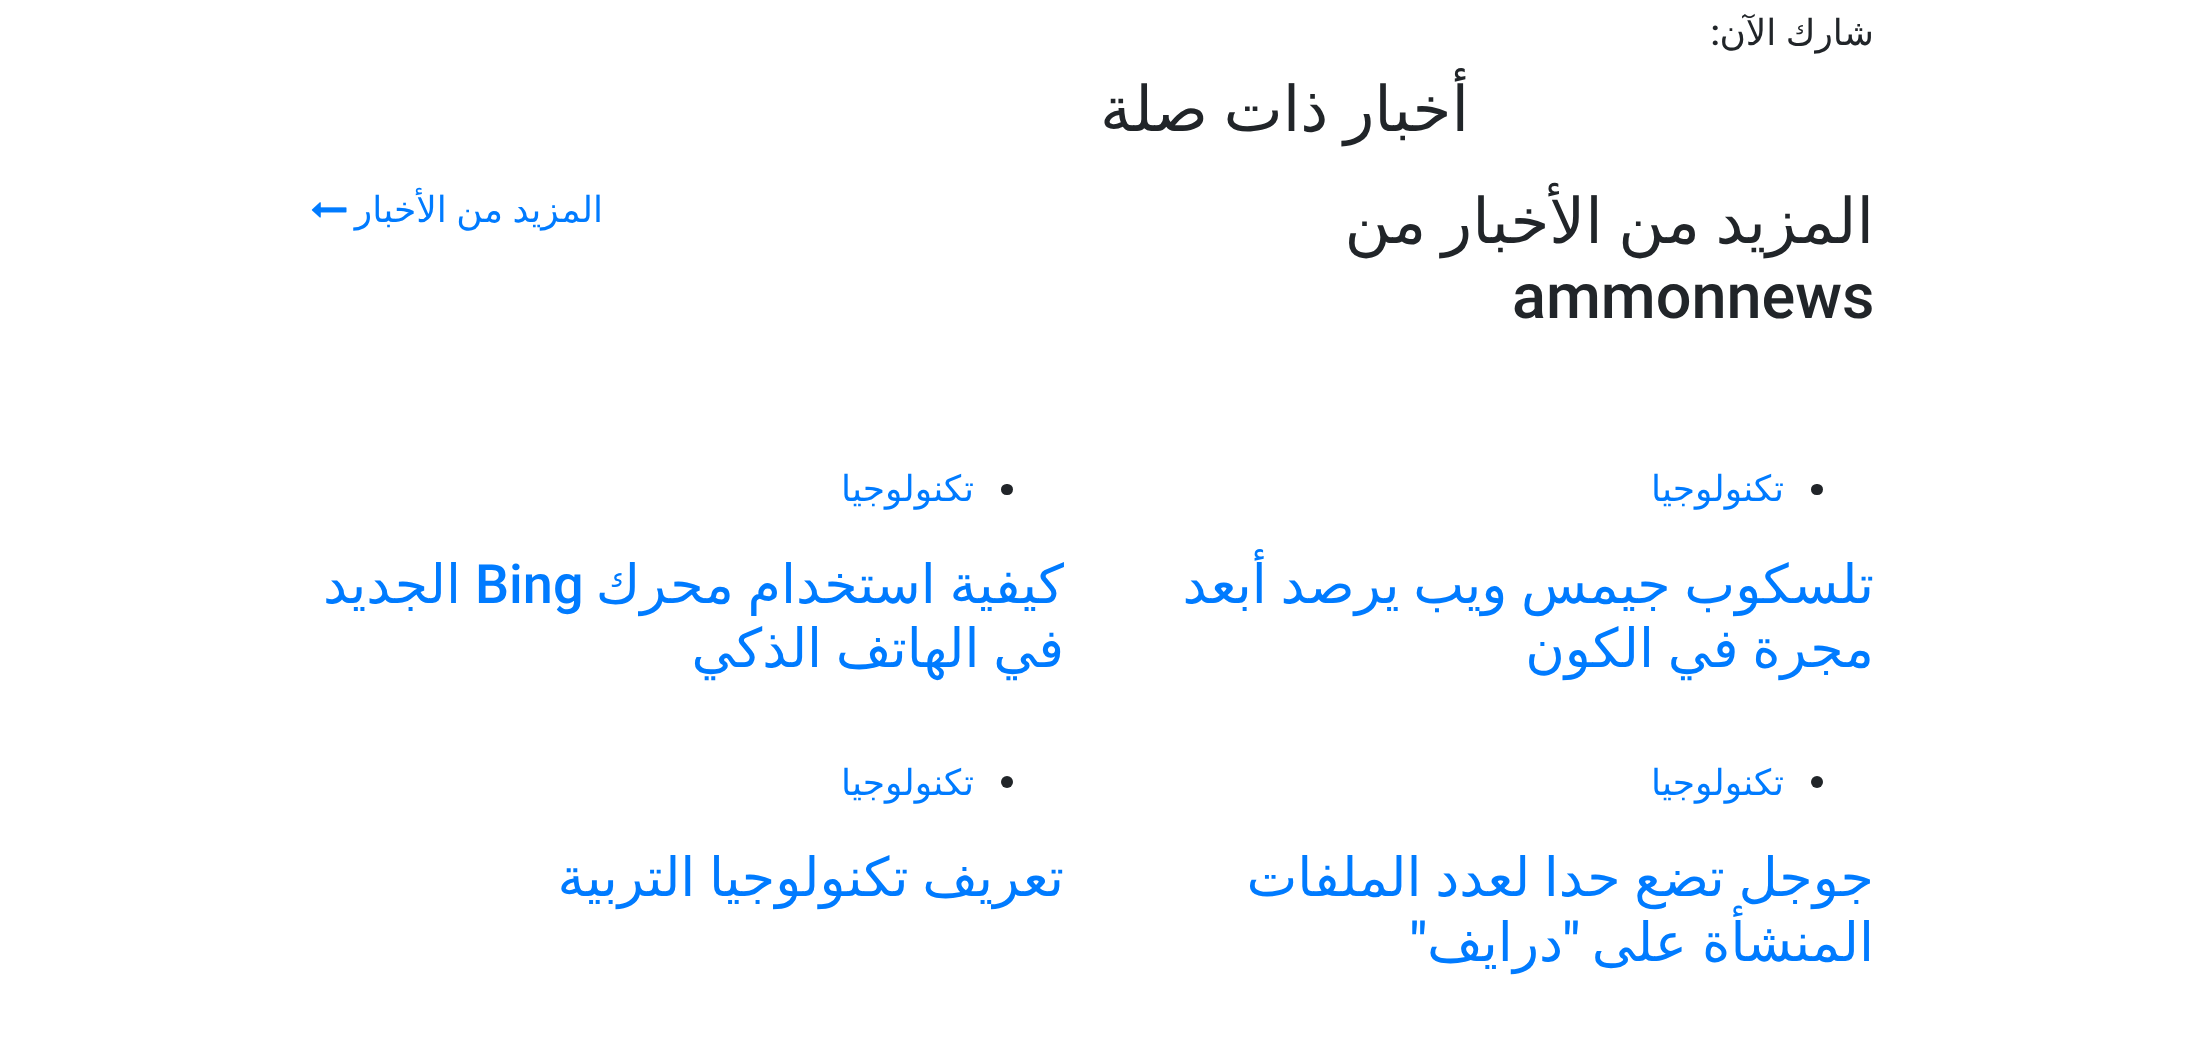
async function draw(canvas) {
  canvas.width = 2195;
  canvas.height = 1062;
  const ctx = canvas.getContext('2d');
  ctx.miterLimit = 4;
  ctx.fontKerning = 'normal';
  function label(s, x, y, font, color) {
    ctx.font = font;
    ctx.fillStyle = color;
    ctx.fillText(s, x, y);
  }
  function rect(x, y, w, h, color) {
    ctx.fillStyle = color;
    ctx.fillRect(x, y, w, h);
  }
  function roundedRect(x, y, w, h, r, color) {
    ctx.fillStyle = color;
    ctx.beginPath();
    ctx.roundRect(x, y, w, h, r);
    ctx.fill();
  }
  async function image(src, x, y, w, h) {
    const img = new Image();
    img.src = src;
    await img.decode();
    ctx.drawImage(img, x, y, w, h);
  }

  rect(0, 0, 2195, 1062, '#fff');
  ctx.wordSpacing = '-2px';
  ctx.direction = 'rtl';
  label('شارك الآن', 1874, 45, '36px DejaVu Sans', '#212529');
  ctx.wordSpacing = '0px';
  label(':', 1720, 45, '500 36px Roboto', '#212529');
  ctx.wordSpacing = '-4.5px';
  label('أخبار ذات صلة', 1469, 131, '63px DejaVu Sans', '#212529');
  label('المزيد من الأخبار من', 1874, 243, '63px DejaVu Sans', '#212529');
  ctx.wordSpacing = '0px';
  ctx.direction = 'ltr';
  label('ammonnews', 1512, 318, '500 63px Roboto', '#212529');
  ctx.wordSpacing = '-2px';
  ctx.direction = 'rtl';
  label('المزيد من الأخبار', 603, 222, '36px DejaVu Sans', '#007bff');
  await image('assets/img1.png', 311, 202, 36, 16);
  roundedRect(1811, 484, 12, 11, 5.5, '#212529');
  ctx.wordSpacing = '0px';
  label('تكنولوجيا', 1784, 501, '36px DejaVu Sans', '#007bff');
  ctx.wordSpacing = '-3.5px';
  label('تلسكوب جيمس ويب يرصد أبعد', 1874, 603, '54px DejaVu Sans', '#007bff');
  label('مجرة في الكون', 1874, 667, '54px DejaVu Sans', '#007bff');
  roundedRect(1001, 484, 12, 11, 5.5, '#212529');
  ctx.wordSpacing = '0px';
  label('تكنولوجيا', 974, 501, '36px DejaVu Sans', '#007bff');
  ctx.wordSpacing = '-3.5px';
  label('كيفية استخدام محرك', 1064, 603, '54px DejaVu Sans', '#007bff');
  ctx.wordSpacing = '0px';
  ctx.direction = 'ltr';
  label('Bing', 475, 603, '500 54px Roboto', '#007bff');
  ctx.direction = 'rtl';
  label('الجديد', 461, 603, '54px DejaVu Sans', '#007bff');
  ctx.wordSpacing = '-3.5px';
  label('في الهاتف الذكي', 1064, 667, '54px DejaVu Sans', '#007bff');
  ctx.fillStyle = '#212529';
  ctx.beginPath();
  ctx.arc(1817, 782, 6, 0, 2 * Math.PI);
  ctx.fill();
  ctx.wordSpacing = '0px';
  label('تكنولوجيا', 1784, 795, '36px DejaVu Sans', '#007bff');
  ctx.wordSpacing = '-3.5px';
  label('جوجل تضع حدا لعدد الملفات', 1874, 896, '54px DejaVu Sans', '#007bff');
  ctx.wordSpacing = '-2px';
  label('المنشأة على', 1874, 961, '54px DejaVu Sans', '#007bff');
  ctx.wordSpacing = '0px';
  label('"', 1580, 961, '500 54px Roboto', '#007bff');
  label('درايف', 1563, 961, '54px DejaVu Sans', '#007bff');
  label('"', 1427, 961, '500 54px Roboto', '#007bff');
  ctx.fillStyle = '#212529';
  ctx.beginPath();
  ctx.arc(1007, 782, 6, 0, 2 * Math.PI);
  ctx.fill();
  label('تكنولوجيا', 974, 795, '36px DejaVu Sans', '#007bff');
  ctx.wordSpacing = '-3.5px';
  label('تعريف تكنولوجيا التربية', 1064, 896, '54px DejaVu Sans', '#007bff');
}

draw(document.querySelector('canvas'));
